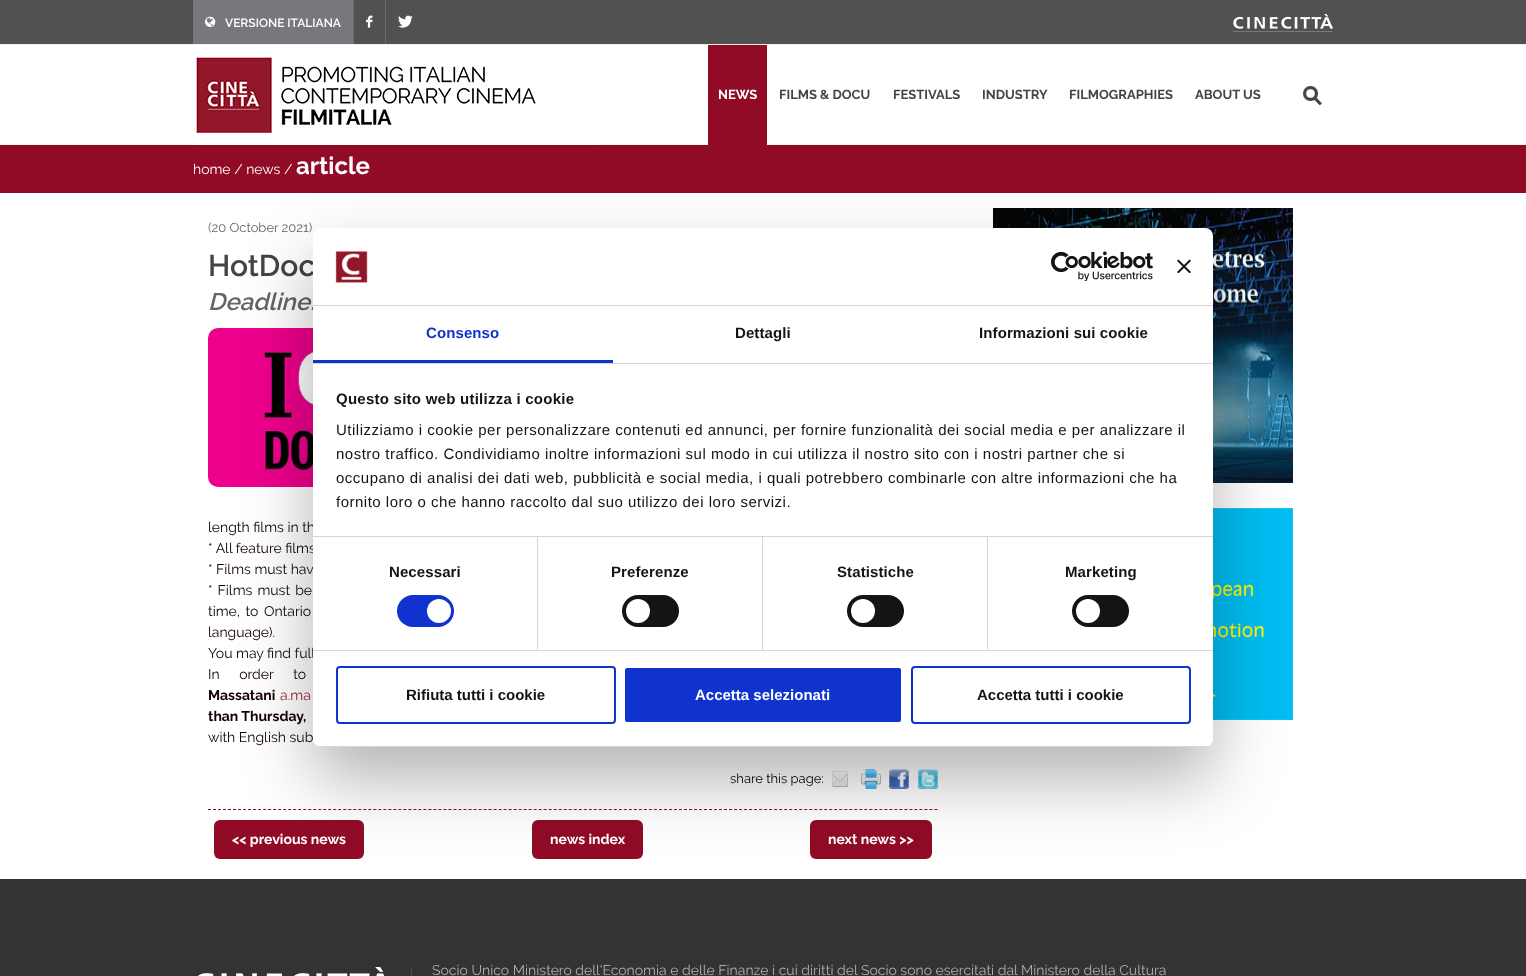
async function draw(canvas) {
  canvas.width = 1526;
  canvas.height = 976;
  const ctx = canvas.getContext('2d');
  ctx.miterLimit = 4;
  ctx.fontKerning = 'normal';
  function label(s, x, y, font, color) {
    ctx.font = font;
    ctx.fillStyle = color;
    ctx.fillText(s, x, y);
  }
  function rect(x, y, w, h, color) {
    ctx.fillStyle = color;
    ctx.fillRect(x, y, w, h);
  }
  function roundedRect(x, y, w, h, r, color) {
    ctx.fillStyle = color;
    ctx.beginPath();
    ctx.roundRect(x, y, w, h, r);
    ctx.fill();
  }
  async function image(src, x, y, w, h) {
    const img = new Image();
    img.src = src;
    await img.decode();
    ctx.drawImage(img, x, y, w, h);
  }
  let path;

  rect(0, 0, 1526, 976, '#fff');
  rect(0, 0, 1526, 44, '#515151');
  rect(0, 44, 1526, 1, '#eee');
  rect(193, 0, 160, 44, '#77787c');
  await image('assets/img1.png', 205, 16, 11, 11);
  label('VERSIONE ITALIANA', 225, 27, '600 12px Raleway', '#fff');
  rect(353, 0, 1, 44, '#6a6b6d');
  await image('assets/img2.png', 366, 15, 7, 13);
  rect(385, 0, 1, 44, '#6a6b6d');
  await image('assets/img3.png', 398, 15, 15, 13);
  await image('assets/img4.png', 1233, 14, 100, 18);
  rect(0, 144, 1526, 1, '#f5f5f5');
  await image('assets/img5.png', 193, 57, 406, 88);
  rect(708, 45, 59, 100, '#910b26');
  label('NEWS', 718, 99, 'bold 13px Raleway', '#fff');
  label('FILMS & DOCU', 779, 99, 'bold 13px Raleway', '#444');
  label('FESTIVALS', 893, 99, 'bold 13px Raleway', '#444');
  label('INDUSTRY', 982, 99, 'bold 13px Raleway', '#444');
  label('FILMOGRAPHIES', 1069, 99, 'bold 13px Raleway', '#444');
  label('ABOUT US', 1195, 99, 'bold 13px Raleway', '#444');
  await image('assets/img6.png', 1303, 86, 19, 20);
  rect(0, 145, 1526, 48, '#910b26');
  label('home / news /', 193, 174, '14px Raleway', '#fff');
  label('article', 296, 174, 'bold 24px Raleway', '#fff');
  label('(20 October 2021)', 208, 232, '13px Raleway', '#636466');
  label('HotDoc', 208, 276, '600 30px Raleway', '#444');
  label('Deadline:', 208, 310, 'italic 600 24px Raleway', '#636466');
  await image('assets/img7.png', 208, 328, 105, 159);
  label('length films in th', 208, 532, '14px Raleway', '#130001');
  label('* All feature films', 208, 553, '14px Raleway', '#130001');
  label('* Films must hav', 208, 574, '14px Raleway', '#130001');
  ctx.wordSpacing = '1.5px';
  label('* Films must be', 208, 595, '14px Raleway', '#130001');
  ctx.wordSpacing = '2px';
  label('time, to Ontario', 208, 616, '14px Raleway', '#130001');
  ctx.wordSpacing = '0px';
  label('language).', 208, 637, '14px Raleway', '#130001');
  label('You may find full', 208, 658, '14px Raleway', '#130001');
  ctx.wordSpacing = '16px';
  label('In order to', 208, 679, '14px Raleway', '#130001');
  ctx.wordSpacing = '0px';
  label('Massatani', 208, 700, 'bold 14px Raleway', '#130001');
  label('a.ma', 280, 700, '14px Raleway', '#a12830');
  label('than Thursday,', 208, 721, 'bold 14px Raleway', '#130001');
  label('with English sub', 208, 742, '14px Raleway', '#130001');
  label('share this page:', 730, 783, '13px Raleway', '#130001');
  await image('assets/img8.png', 832, 771, 16, 16);
  await image('assets/img9.png', 861, 769, 20, 20);
  await image('assets/img10.png', 889, 769, 20, 20);
  await image('assets/img11.png', 918, 769, 20, 20);
  path = new Path2D('M208 809.5H938');
  ctx.strokeStyle = '#910b26';
  ctx.setLineDash([3, 2.01]);
  ctx.stroke(path);
  roundedRect(214, 820, 150, 39, 6, '#910b26');
  label('<< previous news', 232, 844, 'bold 14px Raleway', '#fff');
  roundedRect(532, 820, 111, 39, 6, '#910b26');
  label('news index', 550, 844, 'bold 14px Raleway', '#fff');
  roundedRect(810, 820, 122, 39, 6, '#910b26');
  label('next news >>', 828, 844, 'bold 14px Raleway', '#fff');
  await image('assets/img12.png', 993, 208, 300, 275);
  await image('assets/img13.png', 1213, 508, 80, 212);
  rect(0, 879, 1526, 97, '#333');
  rect(411, 967, 1, 9, '#4a4a4a');
  await image('assets/img14.png', 198, 967, 186, 9);
  label('Socio Unico Ministero dell\'Economia e delle Finanze i cui diritti del Socio sono esercitati dal Ministero della Cultura', 432, 975, '14px Raleway', '#adadad');
  ctx.fillStyle = '#0000004d';
  ctx.filter = 'blur(34px)';
  ctx.beginPath();
  ctx.roundRect(313, 260, 900, 519, 8);
  ctx.fill();
  ctx.filter = 'none';
  roundedRect(313, 228, 900, 519, 8, '#fff');
  rect(313, 305, 900, 1, '#d6d6d6');
  await image('assets/img15.png', 335, 251, 33, 32);
  await image('assets/img16.png', 1051, 251, 102, 30);
  await image('assets/img17.png', 1177, 259, 14, 14);
  rect(313, 363, 900, 1, '#d6d6d6');
  rect(313, 360, 300, 3, '#1032cf');
  ctx.letterSpacing = '0.1px';
  label('Consenso', 426, 338, 'bold 15px Liberation Sans', '#1032cf');
  label('Dettagli', 735, 338, 'bold 15px Liberation Sans', '#141414');
  label('Informazioni sui cookie', 979, 338, 'bold 15px Liberation Sans', '#141414');
  rect(313, 536, 900, 1, '#d6d6d6');
  ctx.letterSpacing = '0.25px';
  label('Questo sito web utilizza i cookie', 336, 404, 'bold 15px Liberation Sans', '#141414');
  ctx.letterSpacing = '0.5px';
  label('Utilizziamo i cookie per personalizzare contenuti ed annunci, per fornire funzionalità dei social media e per analizzare il', 336, 435, '15px Liberation Sans', '#141414');
  label('nostro traffico. Condividiamo inoltre informazioni sul modo in cui utilizza il nostro sito con i nostri partner che si', 336, 459, '15px Liberation Sans', '#141414');
  label('occupano di analisi dei dati web, pubblicità e social media, i quali potrebbero combinarle con altre informazioni che ha', 336, 483, '15px Liberation Sans', '#141414');
  label('fornito loro o che hanno raccolto dal suo utilizzo dei loro servizi.', 336, 507, '15px Liberation Sans', '#141414');
  rect(313, 650, 900, 1, '#d6d6d6');
  rect(537, 537, 1, 113, '#d6d6d6');
  ctx.letterSpacing = '0.1px';
  label('Necessari', 389, 577, 'bold 15px Liberation Sans', '#141414');
  roundedRect(397, 595, 57, 32, 16, '#1032cf');
  ctx.fillStyle = '#fff';
  ctx.beginPath();
  ctx.arc(439, 611, 12, 0, 2 * Math.PI);
  ctx.fill();
  rect(762, 537, 1, 113, '#d6d6d6');
  label('Preferenze', 611, 577, 'bold 15px Liberation Sans', '#141414');
  roundedRect(622, 595, 57, 32, 16, '#141414');
  ctx.fillStyle = '#fff';
  ctx.beginPath();
  ctx.arc(638, 611, 12, 0, 2 * Math.PI);
  ctx.fill();
  rect(987, 537, 1, 113, '#d6d6d6');
  label('Statistiche', 837, 577, 'bold 15px Liberation Sans', '#141414');
  roundedRect(847, 595, 57, 32, 16, '#141414');
  ctx.fillStyle = '#fff';
  ctx.beginPath();
  ctx.arc(863, 611, 12, 0, 2 * Math.PI);
  ctx.fill();
  label('Marketing', 1065, 577, 'bold 15px Liberation Sans', '#141414');
  roundedRect(1072, 595, 57, 32, 16, '#141414');
  ctx.fillStyle = '#fff';
  ctx.beginPath();
  ctx.arc(1088, 611, 12, 0, 2 * Math.PI);
  ctx.fill();
  ctx.save();
  ctx.beginPath();
  ctx.roundRect(313, 228, 900, 519, 8);
  ctx.clip();
  rect(313, 746, 900, 1, '#d6d6d6');
  ctx.restore();
  ctx.beginPath();
  ctx.roundRect(337, 667, 278, 56, 3);
  ctx.strokeStyle = '#1032cf';
  ctx.lineWidth = 2;
  ctx.setLineDash([]);
  ctx.stroke();
  ctx.letterSpacing = '0px';
  label('Rifiuta tutti i cookie', 406, 700, 'bold 15px Liberation Sans', '#141414');
  ctx.fillStyle = '#1032cf';
  ctx.beginPath();
  ctx.roundRect(624, 667, 278, 56, 3);
  ctx.fill();
  ctx.strokeStyle = '#fff';
  ctx.stroke();
  label('Accetta selezionati', 695, 700, 'bold 15px Liberation Sans', '#fff');
  ctx.beginPath();
  ctx.roundRect(912, 667, 278, 56, 3);
  ctx.strokeStyle = '#1032cf';
  ctx.stroke();
  label('Accetta tutti i cookie', 977, 700, 'bold 15px Liberation Sans', '#141414');
}

draw(document.querySelector('canvas'));
